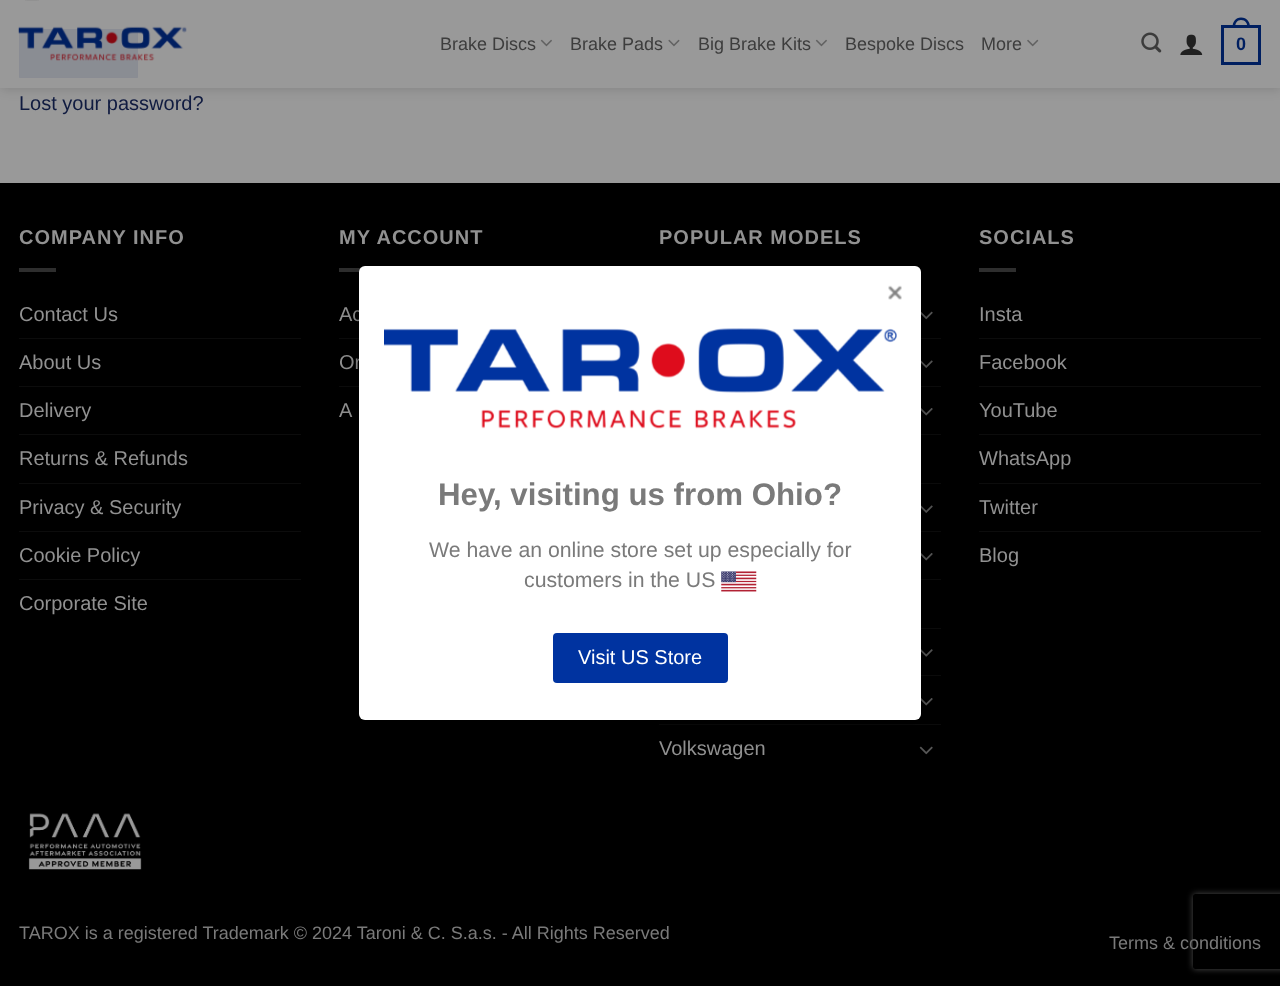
async function draw(canvas) {
  canvas.width = 1280;
  canvas.height = 986;
  const ctx = canvas.getContext('2d');
  ctx.miterLimit = 4;
  ctx.fontKerning = 'normal';
  function label(s, x, y, font, color) {
    ctx.font = font;
    ctx.fillStyle = color;
    ctx.fillText(s, x, y);
  }
  function rect(x, y, w, h, color) {
    ctx.fillStyle = color;
    ctx.fillRect(x, y, w, h);
  }
  function roundedRect(x, y, w, h, r, color) {
    ctx.fillStyle = color;
    ctx.beginPath();
    ctx.roundRect(x, y, w, h, r);
    ctx.fill();
  }
  async function image(src, x, y, w, h) {
    const img = new Image();
    img.src = src;
    await img.decode();
    ctx.drawImage(img, x, y, w, h);
  }
  let path;

  rect(0, 0, 1280, 986, '#999');
  ctx.beginPath();
  ctx.roundRect(24.5, -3.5, 15, 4, 2);
  ctx.strokeStyle = '#474747';
  ctx.stroke();
  ctx.fillStyle = '#001f60';
  ctx.beginPath();
  ctx.rect(19.5, 29.5, 118, 48);
  ctx.fill();
  ctx.strokeStyle = '#001d5b';
  ctx.stroke();
  ctx.save();
  path = new Path2D('M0 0H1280V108H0ZM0 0H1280V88H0Z');
  ctx.clip(path, 'evenodd');
  ctx.fillStyle = '#00000026';
  ctx.filter = 'blur(6px)';
  ctx.beginPath();
  ctx.rect(1, 1, 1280, 88);
  ctx.fill();
  ctx.filter = 'none';
  ctx.restore();
  rect(0, 0, 1280, 88, '#999999e6');
  await image('assets/img1.png', 18, 26, 169, 35);
  label('Brake Discs', 440, 50, '18px Liberation Sans', '#3d3d3d');
  await image('assets/img2.png', 540, 39, 12, 8);
  label('Brake Pads', 570, 50, '18px Liberation Sans', '#3d3d3d');
  await image('assets/img3.png', 668, 39, 12, 8);
  label('Big Brake Kits', 698, 50, '18px Liberation Sans', '#3d3d3d');
  await image('assets/img2.png', 815, 39, 12, 8);
  label('Bespoke Discs', 845, 50, '18px Liberation Sans', '#3d3d3d');
  label('More', 981, 50, '18px Liberation Sans', '#3d3d3d');
  await image('assets/img4.png', 1027, 39, 12, 8);
  await image('assets/img5.png', 1141, 32, 21, 21);
  await image('assets/img6.png', 1180, 34, 23, 21);
  ctx.strokeStyle = '#001f60';
  ctx.lineWidth = 3;
  ctx.strokeRect(1222.5, 26.5, 37, 37);
  ctx.fillStyle = '#001f60';
  path = new Path2D('M1241 17.5C1247 17.5 1250 22 1250 27.5H1232.5C1232.5 22 1235.5 17.5 1241 17.5ZM1241 20C1245.5 20 1247.5 23.5 1247.5 27.5H1235C1235 23.5 1237 20 1241 20Z');
  ctx.fill(path, 'evenodd');
  label('0', 1236, 50, 'bold 18px Liberation Sans', '#001f60');
  label('Lost your password?', 19, 110, '20px Liberation Sans', '#101b40');
  rect(0, 183, 1280, 803, '#000');
  ctx.letterSpacing = '1px';
  label('COMPANY INFO', 19, 244, 'bold 20px Liberation Sans', '#919191');
  rect(19, 268, 37, 4, '#2e2e2e');
  ctx.letterSpacing = '0px';
  label('Contact Us', 19, 321, '20px Liberation Sans', '#919191');
  rect(19, 338, 282, 1, '#0c0c0c');
  label('About Us', 19, 369, '20px Liberation Sans', '#919191');
  rect(19, 386, 282, 1, '#0c0c0c');
  label('Delivery', 19, 417, '20px Liberation Sans', '#919191');
  rect(19, 434, 282, 1, '#0c0c0c');
  label('Returns & Refunds', 19, 465, '20px Liberation Sans', '#919191');
  rect(19, 483, 282, 1, '#0c0c0c');
  label('Privacy & Security', 19, 514, '20px Liberation Sans', '#919191');
  rect(19, 531, 282, 1, '#0c0c0c');
  label('Cookie Policy', 19, 562, '20px Liberation Sans', '#919191');
  rect(19, 579, 282, 1, '#0c0c0c');
  label('Corporate Site', 19, 610, '20px Liberation Sans', '#919191');
  ctx.letterSpacing = '1px';
  label('MY ACCOUNT', 339, 244, 'bold 20px Liberation Sans', '#919191');
  rect(339, 268, 22, 4, '#2e2e2e');
  ctx.letterSpacing = '0px';
  label('Ac', 339, 321, '20px Liberation Sans', '#919191');
  rect(339, 338, 20, 1, '#0c0c0c');
  label('Or', 339, 369, '20px Liberation Sans', '#919191');
  rect(339, 386, 20, 1, '#0c0c0c');
  label('A', 339, 417, '20px Liberation Sans', '#919191');
  ctx.letterSpacing = '1px';
  label('POPULAR MODELS', 659, 244, 'bold 20px Liberation Sans', '#919191');
  await image('assets/img7.png', 921, 311, 12, 9);
  rect(921, 338, 20, 1, '#0c0c0c');
  await image('assets/img8.png', 921, 360, 12, 8);
  rect(921, 386, 20, 1, '#0c0c0c');
  await image('assets/img9.png', 921, 408, 12, 8);
  rect(921, 434, 20, 1, '#0c0c0c');
  rect(921, 483, 20, 1, '#0c0c0c');
  await image('assets/img8.png', 921, 505, 12, 8);
  rect(921, 531, 20, 1, '#0c0c0c');
  await image('assets/img9.png', 921, 553, 12, 8);
  rect(921, 579, 20, 1, '#0c0c0c');
  rect(921, 628, 20, 1, '#0c0c0c');
  await image('assets/img10.png', 921, 649, 12, 8);
  rect(921, 675, 20, 1, '#0c0c0c');
  await image('assets/img9.png', 921, 698, 12, 8);
  rect(659, 724, 282, 1, '#0c0c0c');
  ctx.letterSpacing = '0px';
  label('Volkswagen', 659, 755, '20px Liberation Sans', '#919191');
  await image('assets/img11.png', 919, 746, 14, 9);
  ctx.letterSpacing = '1px';
  label('SOCIALS', 979, 244, 'bold 20px Liberation Sans', '#919191');
  rect(979, 268, 37, 4, '#2e2e2e');
  ctx.letterSpacing = '0px';
  label('Insta', 979, 321, '20px Liberation Sans', '#919191');
  rect(979, 338, 282, 1, '#0c0c0c');
  label('Facebook', 979, 369, '20px Liberation Sans', '#919191');
  rect(979, 386, 282, 1, '#0c0c0c');
  label('YouTube', 979, 417, '20px Liberation Sans', '#919191');
  rect(979, 434, 282, 1, '#0c0c0c');
  label('WhatsApp', 979, 465, '20px Liberation Sans', '#919191');
  rect(979, 483, 282, 1, '#0c0c0c');
  label('Twitter', 979, 514, '20px Liberation Sans', '#919191');
  rect(979, 531, 282, 1, '#0c0c0c');
  label('Blog', 979, 562, '20px Liberation Sans', '#919191');
  await image('assets/img12.png', 28, 813, 114, 57);
  label('TAROX is a registered Trademark © 2024 Taroni & C. S.a.s. - All Rights Reserved', 19, 939, '18px Liberation Sans', '#7a7a7a');
  label('Terms & conditions', 1109, 949, '18px Liberation Sans', '#7a7a7a');
  ctx.fillStyle = '#00000030';
  ctx.filter = 'blur(12.5px)';
  ctx.beginPath();
  ctx.roundRect(359, 274, 562, 454, 6);
  ctx.fill();
  ctx.filter = 'none';
  ctx.fillStyle = '#00000033';
  ctx.filter = 'blur(5px)';
  ctx.beginPath();
  ctx.roundRect(359, 271, 562, 454, 6);
  ctx.fill();
  ctx.filter = 'none';
  roundedRect(359, 266, 562, 454, 6, '#fff');
  await image('assets/img13.png', 888, 285, 14, 15);
  await image('assets/img14.png', 384, 328, 513, 101);
  label('Hey, visiting us from Ohio?', 438, 505, 'bold 31.25px Liberation Sans', '#7a7a7a');
  label('We have an online store set up especially for', 429, 557, '21.25px Liberation Sans', '#7a7a7a');
  label('customers in the US', 524, 587, '21.25px Liberation Sans', '#7a7a7a');
  await image('assets/img15.png', 721, 571, 36, 21);
  roundedRect(553, 633, 175, 50, 4, '#0033a0');
  label('Visit US Store', 578, 664, '20px Liberation Sans', '#fff');
  ctx.save();
  path = new Path2D('M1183 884H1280V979H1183ZM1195.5 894H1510.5C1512 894 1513 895 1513 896.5V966.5C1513 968 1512 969 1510.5 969H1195.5C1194 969 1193 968 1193 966.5V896.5C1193 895 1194 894 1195.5 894Z');
  ctx.clip(path, 'evenodd');
  ctx.fillStyle = '#4d4d4d';
  ctx.filter = 'blur(3px)';
  ctx.beginPath();
  ctx.roundRect(1193, 894, 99, 75, 2.5);
  ctx.fill();
  ctx.filter = 'none';
  ctx.restore();
}

draw(document.querySelector('canvas'));
